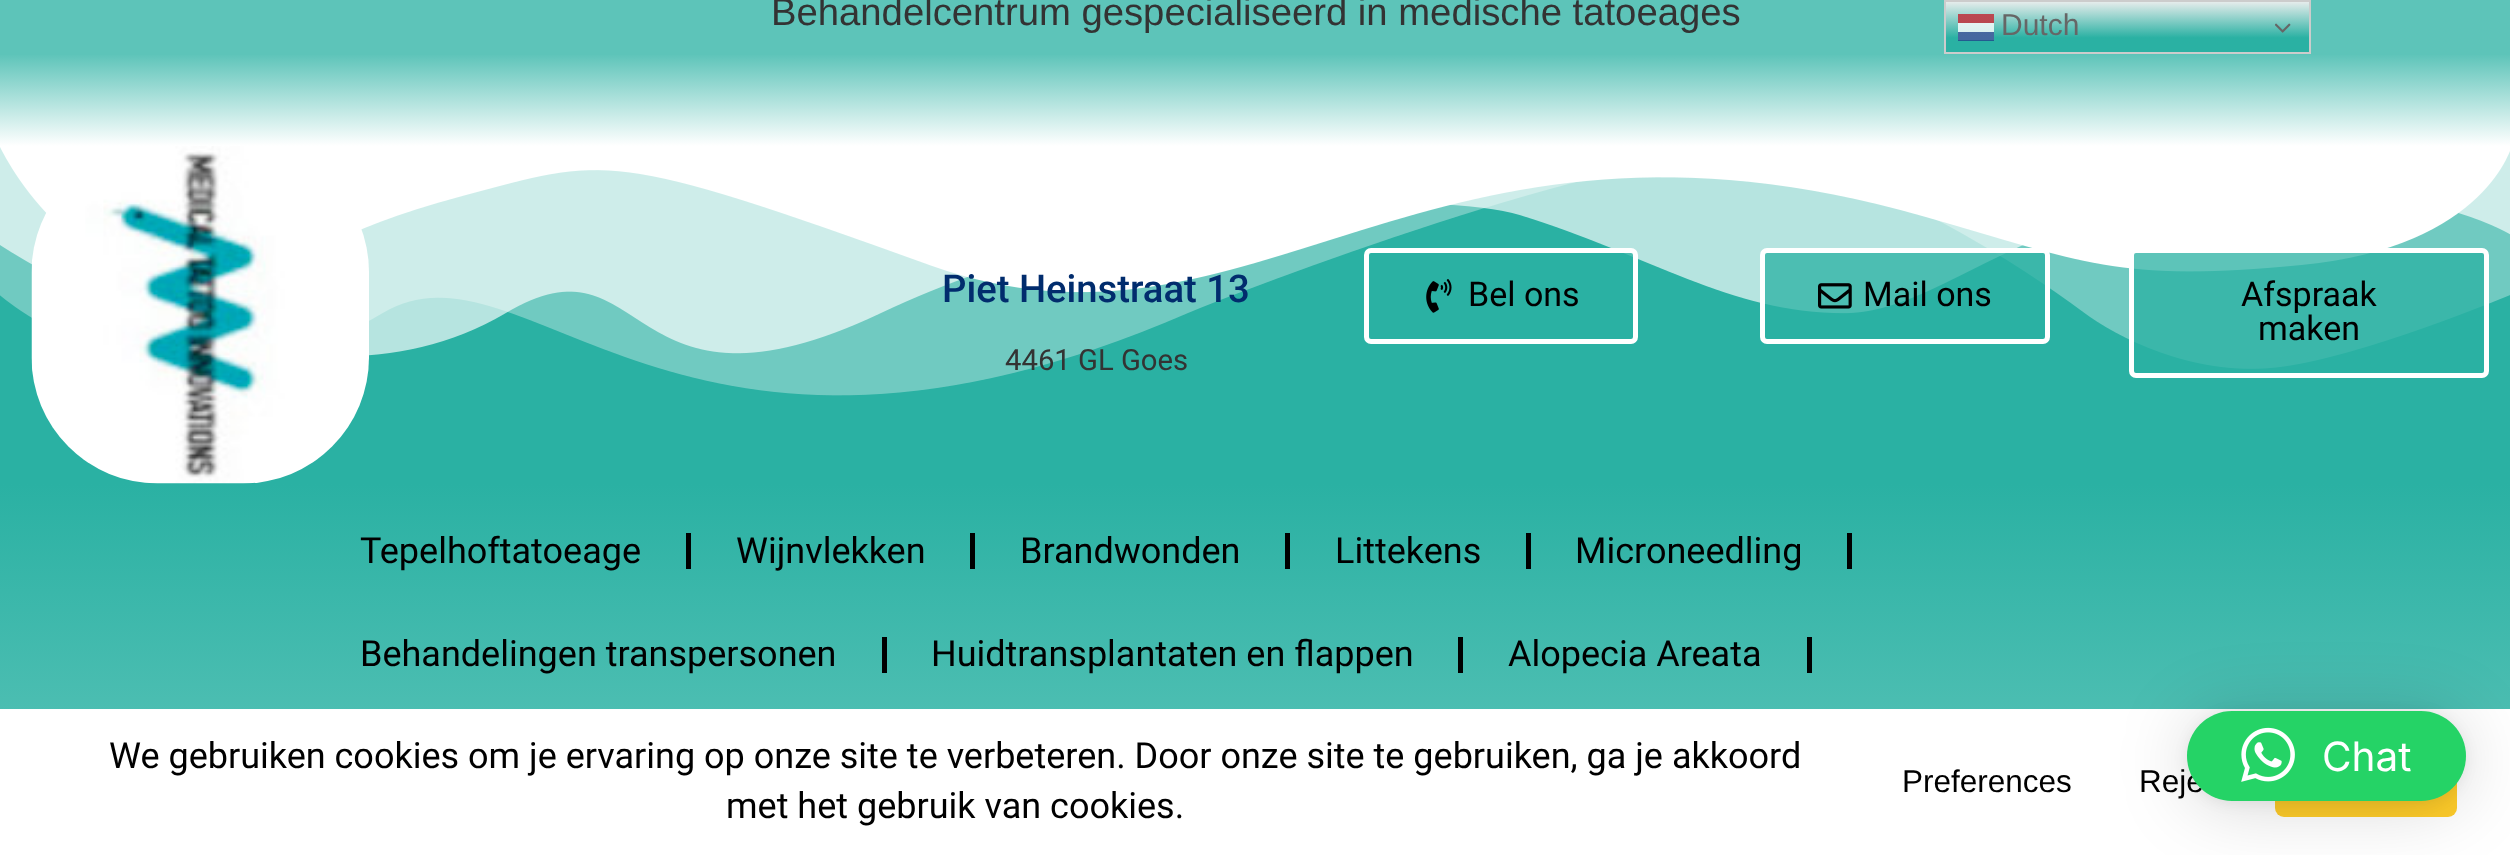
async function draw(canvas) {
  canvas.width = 2510;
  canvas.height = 855;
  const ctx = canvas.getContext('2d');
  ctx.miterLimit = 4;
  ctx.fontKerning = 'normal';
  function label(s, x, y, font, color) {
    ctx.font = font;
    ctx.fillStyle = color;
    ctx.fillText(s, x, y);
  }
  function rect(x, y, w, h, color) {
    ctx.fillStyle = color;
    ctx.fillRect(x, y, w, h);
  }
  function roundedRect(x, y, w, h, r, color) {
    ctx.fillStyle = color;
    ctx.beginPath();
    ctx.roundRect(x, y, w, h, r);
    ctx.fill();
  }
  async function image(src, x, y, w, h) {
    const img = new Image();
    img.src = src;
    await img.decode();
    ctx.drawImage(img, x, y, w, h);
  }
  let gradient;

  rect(0, 0, 2510, 855, '#5dc4b9');
  label('Behandelcentrum gespecialiseerd in medische tatoeages', 771, 25, '38.25px Liberation Sans', '#333');
  gradient = ctx.createLinearGradient(1256, 54, 1256, 146);
  gradient.addColorStop(0, '#5dc4b9');
  gradient.addColorStop(1, '#fff');
  ctx.fillStyle = gradient;
  ctx.fillRect(0, 55, 2510, 91);
  rect(0, 147, 2510, 337, '#2ab1a3');
  await image('assets/img1.png', 0, 146, 2510, 250);
  await image('assets/img2.png', 31, 146, 338, 338);
  label('Piet Heinstraat 13', 942, 302, '500 38.25px Roboto', '#012c6d');
  label('4461 GL Goes', 1005, 370, '29.25px Roboto', '#333');
  ctx.fillStyle = '#2ab1a3c2';
  ctx.beginPath();
  ctx.roundRect(1366.5, 250.5, 269, 91, 4.5);
  ctx.fill();
  ctx.strokeStyle = '#fff';
  ctx.lineWidth = 5;
  ctx.stroke();
  await image('assets/img3.png', 1426, 279, 26, 34);
  label('Bel ons', 1468, 306, '34px Roboto', '#000');
  ctx.fillStyle = '#2ab1a3c2';
  ctx.beginPath();
  ctx.roundRect(1762.5, 250.5, 285, 91, 4.5);
  ctx.fill();
  ctx.stroke();
  await image('assets/img4.png', 1818, 283, 34, 26);
  label('Mail ons', 1863, 306, '34px Roboto', '#000');
  ctx.fillStyle = '#2ab1a3c2';
  ctx.beginPath();
  ctx.roundRect(2131.5, 250.5, 355, 125, 4.5);
  ctx.fill();
  ctx.stroke();
  label('Afspraak', 2241, 306, '34px Roboto', '#000');
  label('maken', 2258, 340, '34px Roboto', '#000');
  gradient = ctx.createLinearGradient(1256, 484, 1256, 826);
  gradient.addColorStop(0, '#2ab1a3');
  gradient.addColorStop(1, '#5dc4b9');
  ctx.fillStyle = gradient;
  ctx.fillRect(0, 484, 2510, 225);
  label('Tepelhoftatoeage', 360, 563, '36px Roboto', '#000');
  rect(686, 533, 5, 36, '#000');
  label('Wijnvlekken', 736, 563, '36px Roboto', '#000');
  rect(970, 533, 5, 36, '#000');
  label('Brandwonden', 1020, 563, '36px Roboto', '#000');
  rect(1285, 533, 5, 36, '#000');
  label('Littekens', 1335, 563, '36px Roboto', '#000');
  rect(1526, 533, 5, 36, '#000');
  label('Microneedling', 1575, 563, '36px Roboto', '#000');
  rect(1847, 533, 5, 36, '#000');
  label('Behandelingen transpersonen', 360, 666, '36px Roboto', '#000');
  rect(882, 637, 5, 36, '#000');
  label('Huidtransplantaten en flappen', 931, 666, '36px Roboto', '#000');
  rect(1458, 637, 5, 36, '#000');
  label('Alopecia Areata', 1508, 666, '36px Roboto', '#000');
  rect(1807, 637, 5, 36, '#000');
  gradient = ctx.createLinearGradient(2127, 0, 2127, 54);
  gradient.addColorStop(0, '#efefef');
  gradient.addColorStop(0.7, '#2ab1a3');
  ctx.fillStyle = gradient;
  ctx.fillRect(1946, 2, 363, 50);
  gradient = ctx.createLinearGradient(2127, 0, 2127, 54);
  gradient.addColorStop(0, '#4a689f');
  gradient.addColorStop(0.7, '#235b90');
  ctx.fillStyle = gradient;
  ctx.fillRect(1958, 40, 36, 1);
  gradient = ctx.createLinearGradient(2127, 0, 2127, 54);
  gradient.addColorStop(0, '#fcfcfc');
  gradient.addColorStop(0.7, '#d4efed');
  ctx.fillStyle = gradient;
  ctx.fillRect(1958, 23, 36, 9);
  gradient = ctx.createLinearGradient(2127, 0, 2127, 54);
  gradient.addColorStop(0, '#be4952');
  gradient.addColorStop(0.7, '#b6464f');
  ctx.fillStyle = gradient;
  ctx.fillRect(1958, 14, 36, 9);
  gradient = ctx.createLinearGradient(2127, 0, 2127, 54);
  gradient.addColorStop(0, '#4d6aa2');
  gradient.addColorStop(0.7, '#45689f');
  ctx.fillStyle = gradient;
  ctx.fillRect(1958, 32, 36, 8);
  ctx.strokeStyle = '#ccc';
  ctx.lineWidth = 2;
  ctx.strokeRect(1945, 1, 365, 52);
  label('Dutch', 2001, 35, '30px Liberation Sans', '#666');
  await image('assets/img5.png', 2275, 23, 16, 10);
  rect(0, 709, 2510, 146, '#fff');
  label('We gebruiken cookies om je ervaring op onze site te verbeteren. Door onze site te gebruiken, ga je akkoord', 109, 768, '36px Roboto', '#000');
  label('met het gebruik van cookies.', 726, 818, '36px Roboto', '#000');
  label('Preferences', 1902, 792, '31.5px Liberation Sans', '#000');
  label('Reje', 2139, 792, '31.5px Liberation Sans', '#000');
  roundedRect(2275, 749, 182, 68, 9, '#ffcd2a');
  ctx.fillStyle = '#00000029';
  ctx.filter = 'blur(36px)';
  ctx.beginPath();
  ctx.roundRect(2187, 716, 279, 90, 45);
  ctx.fill();
  ctx.filter = 'none';
  ctx.fillStyle = '#0000000f';
  ctx.filter = 'blur(7px)';
  ctx.beginPath();
  ctx.roundRect(2187, 713, 279, 90, 45);
  ctx.fill();
  ctx.filter = 'none';
  roundedRect(2187, 711, 279, 90, 45, '#25d366');
  await image('assets/img6.png', 2241, 727, 54, 55);
  label('Chat', 2322, 771, '40.5px Inter', '#fff');
}

draw(document.querySelector('canvas'));
